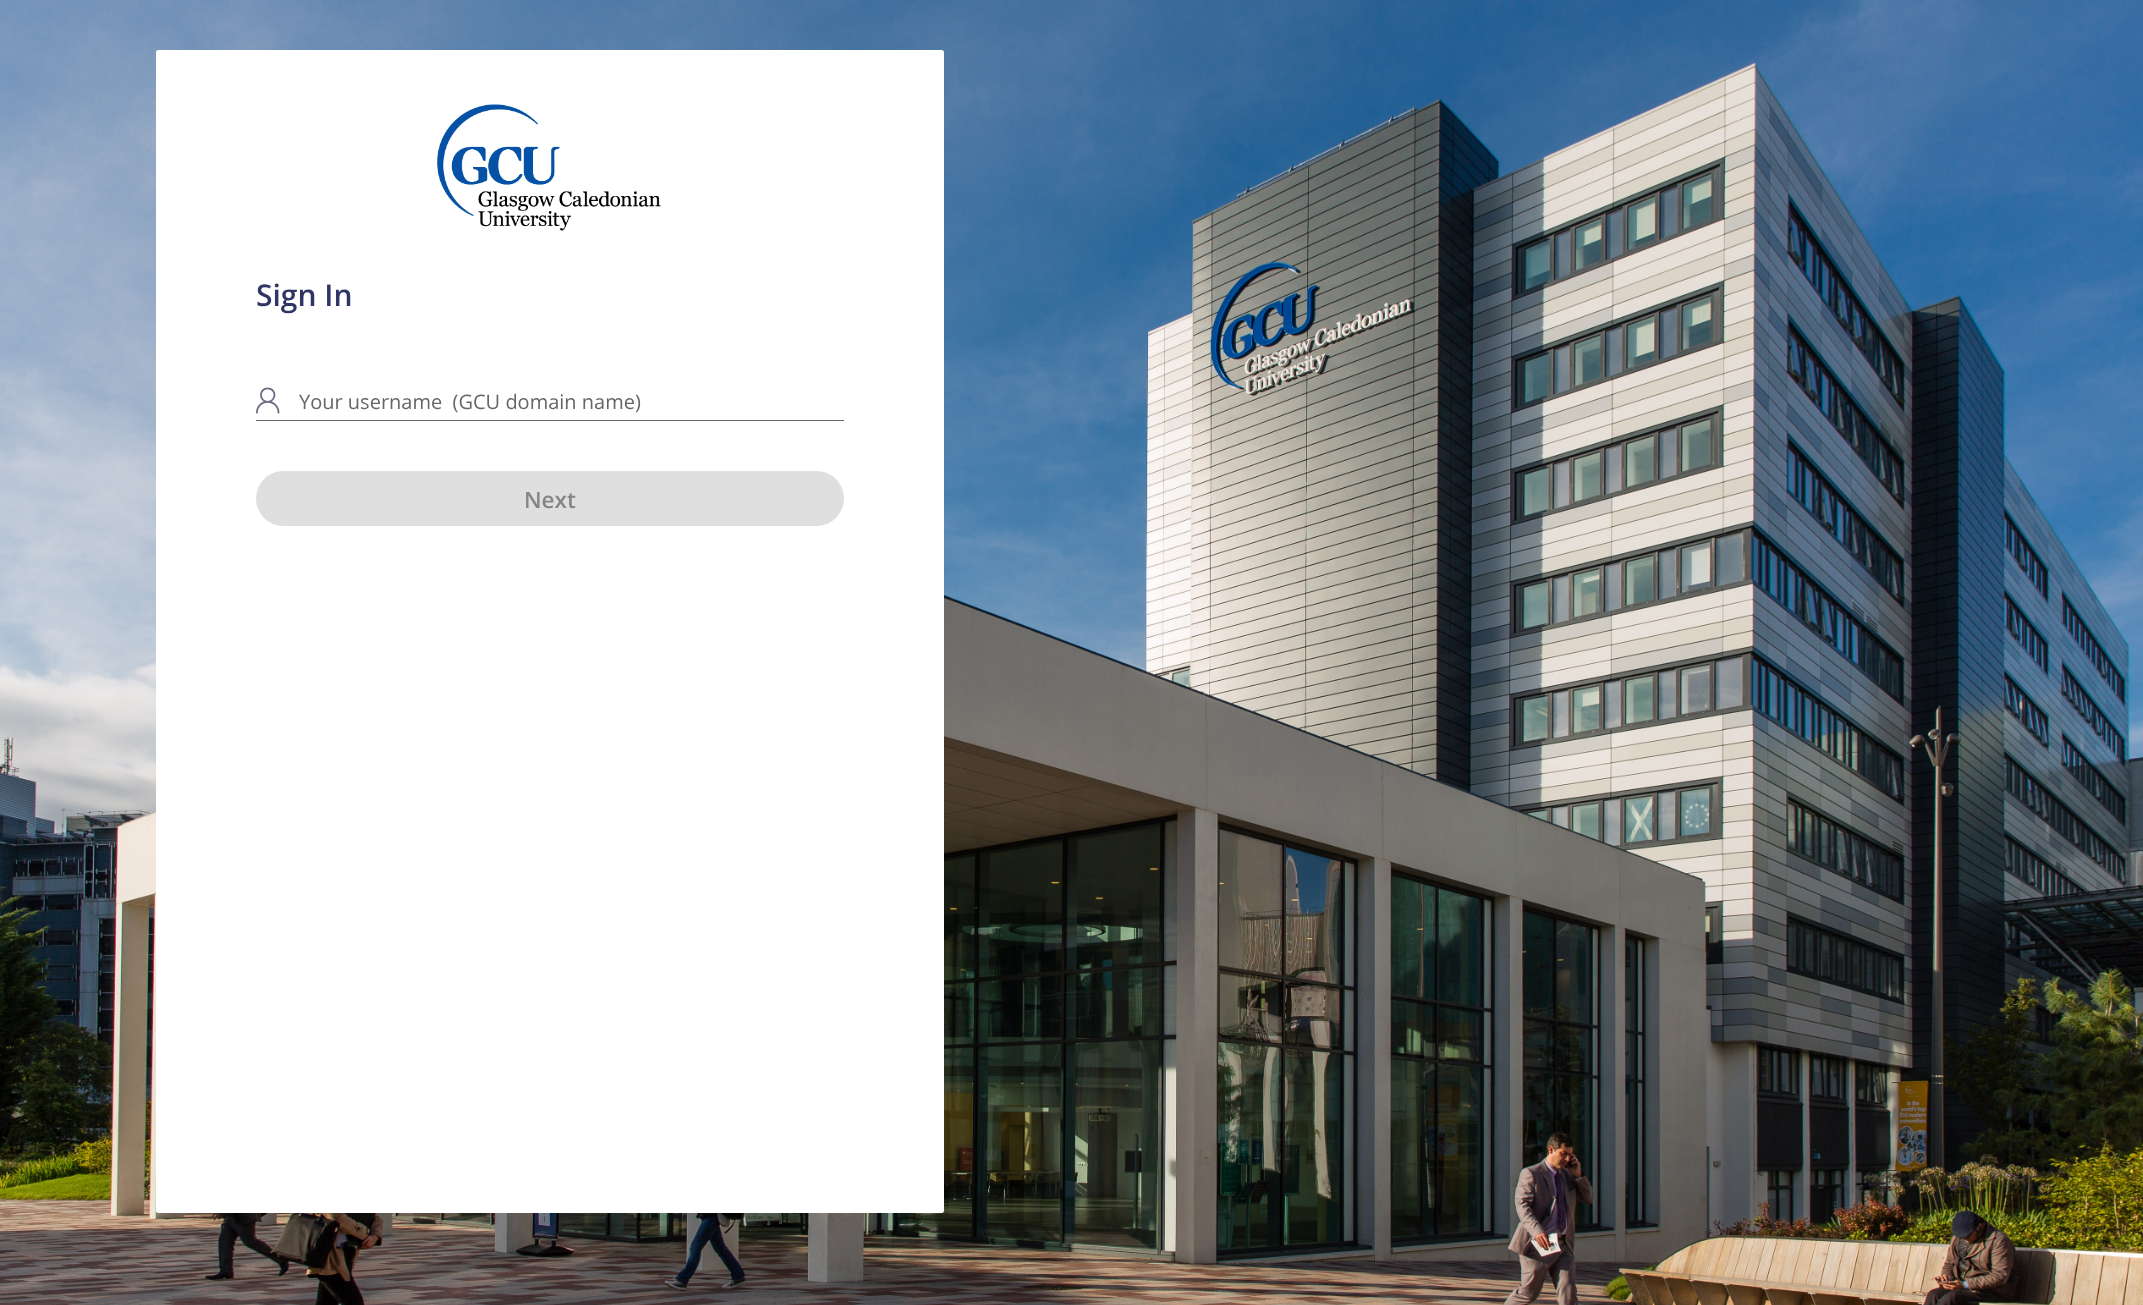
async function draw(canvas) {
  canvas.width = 2143;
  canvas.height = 1305;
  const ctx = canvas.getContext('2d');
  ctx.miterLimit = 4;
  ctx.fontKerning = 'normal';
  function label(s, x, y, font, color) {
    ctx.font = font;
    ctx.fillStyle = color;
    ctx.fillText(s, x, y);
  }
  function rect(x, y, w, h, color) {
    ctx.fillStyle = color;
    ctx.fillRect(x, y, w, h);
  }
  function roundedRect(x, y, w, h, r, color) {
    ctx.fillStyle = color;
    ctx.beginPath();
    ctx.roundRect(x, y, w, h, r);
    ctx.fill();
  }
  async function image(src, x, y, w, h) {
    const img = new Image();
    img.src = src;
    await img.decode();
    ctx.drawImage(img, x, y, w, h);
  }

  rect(0, 0, 2143, 1305, '#fff');
  await image('assets/img1.png', 0, 0, 2143, 1305);
  roundedRect(156, 50, 788, 1163, 2.5, '#fff');
  await image('assets/img2.png', 437, 104, 224, 127);
  label('Sign In', 256, 306, '600 30px Open Sans', '#2f3564');
  label('N', 256, 414, '30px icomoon', '#6c6e83');
  rect(256, 420, 588, 1, '#666');
  label('Your username  (GCU domain name)', 299, 409, '20px Open Sans', '#666');
  roundedRect(256, 471, 588, 55, 27.5, '#dfdfdf');
  label('Next', 524, 508, '600 22.5px Open Sans', '#858585');
}

draw(document.querySelector('canvas'));
